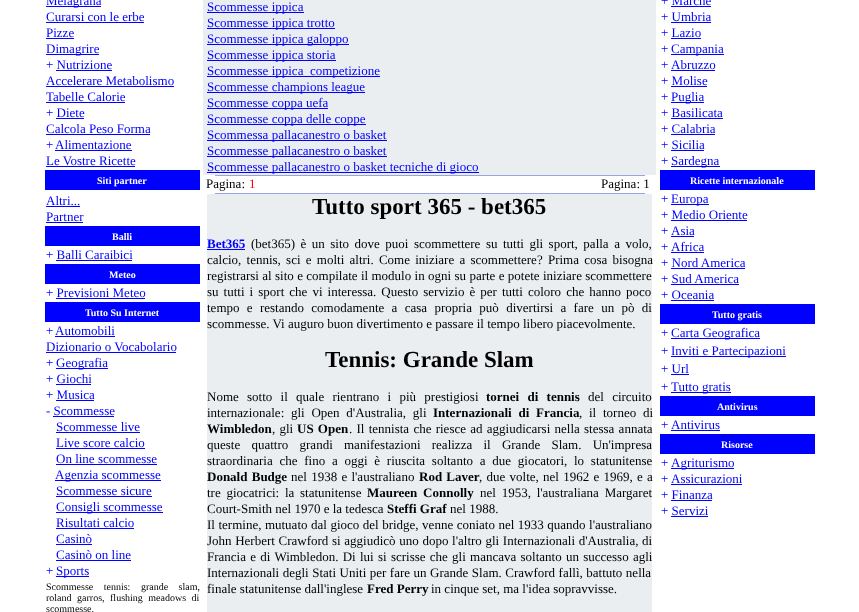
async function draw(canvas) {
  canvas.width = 859;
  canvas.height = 612;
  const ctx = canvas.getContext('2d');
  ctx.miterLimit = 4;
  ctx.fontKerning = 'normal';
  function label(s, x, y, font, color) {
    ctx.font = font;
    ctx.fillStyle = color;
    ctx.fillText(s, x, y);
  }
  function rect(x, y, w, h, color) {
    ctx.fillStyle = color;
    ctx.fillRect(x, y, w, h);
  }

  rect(0, 0, 859, 612, '#fff');
  rect(45, 170, 155, 152, '#00f');
  rect(46, 6, 55, 1, '#00f');
  label('Melagrana', 46, 5, '13px Liberation Serif', '#00f');
  label('Curarsi con le erbe', 46, 21, '13px Liberation Serif', '#00f');
  rect(46, 22, 98, 1, '#00f');
  label('Pizze', 46, 37, '13px Liberation Serif', '#00f');
  rect(46, 38, 28, 1, '#00f');
  rect(46, 54, 53, 1, '#00f');
  label('Dimagrire', 46, 53, '13px Liberation Serif', '#00f');
  label('+ Nutrizione', 46, 69, '13px Liberation Serif', '#00f');
  rect(56, 70, 56, 1, '#00f');
  label('Accelerare Metabolismo', 46, 85, '13px Liberation Serif', '#00f');
  rect(46, 86, 128, 1, '#00f');
  label('Tabelle Calorie', 46, 101, '13px Liberation Serif', '#00f');
  rect(46, 102, 79, 1, '#00f');
  label('+ Diete', 46, 117, '13px Liberation Serif', '#00f');
  rect(56, 118, 28, 1, '#00f');
  label('Calcola Peso Forma', 46, 133, '13px Liberation Serif', '#00f');
  rect(46, 134, 104, 1, '#00f');
  label('+', 46, 149, '13px Liberation Serif', '#00f');
  label('Alimentazione', 55, 149, '13px Liberation Serif', '#00f');
  rect(55, 150, 77, 1, '#00f');
  label('Le Vostre Ricette', 46, 165, '13px Liberation Serif', '#00f');
  rect(46, 166, 89, 1, '#00f');
  label('Siti partner', 97, 184, 'bold 10px Liberation Serif', '#fff');
  rect(45, 190, 155, 36, '#fff');
  label('Altri...', 46, 205, '13px Liberation Serif', '#00f');
  rect(46, 206, 34, 1, '#00f');
  label('Partner', 46, 221, '13px Liberation Serif', '#00f');
  rect(46, 222, 37, 1, '#00f');
  label('Balli', 112, 240, 'bold 10px Liberation Serif', '#fff');
  rect(45, 246, 155, 18, '#fff');
  label('+ Balli Caraibici', 46, 259, '13px Liberation Serif', '#00f');
  rect(56, 260, 76, 1, '#00f');
  label('Meteo', 109, 278, 'bold 10px Liberation Serif', '#fff');
  rect(45, 284, 155, 18, '#fff');
  label('+ Previsioni Meteo', 46, 297, '13px Liberation Serif', '#00f');
  rect(56, 298, 89, 1, '#00f');
  label('Tutto Su Internet', 85, 316, 'bold 10px Liberation Serif', '#fff');
  label('+', 46, 335, '13px Liberation Serif', '#00f');
  label('Automobili', 55, 335, '13px Liberation Serif', '#00f');
  rect(55, 336, 60, 1, '#00f');
  label('Dizionario o Vocabolario', 46, 351, '13px Liberation Serif', '#00f');
  rect(46, 352, 130, 1, '#00f');
  label('+', 46, 367, '13px Liberation Serif', '#00f');
  rect(56, 368, 52, 1, '#00f');
  label('Geografia', 56, 367, '13px Liberation Serif', '#00f');
  label('+ Giochi', 46, 383, '13px Liberation Serif', '#00f');
  rect(56, 384, 35, 1, '#00f');
  label('+ Musica', 46, 399, '13px Liberation Serif', '#00f');
  rect(56, 400, 38, 1, '#00f');
  label('- Scommesse', 46, 415, '13px Liberation Serif', '#00f');
  rect(53, 416, 61, 1, '#00f');
  label('Scommesse live', 56, 431, '13px Liberation Serif', '#00f');
  rect(56, 432, 84, 1, '#00f');
  label('Live score calcio', 56, 447, '13px Liberation Serif', '#00f');
  rect(56, 448, 89, 1, '#00f');
  label('On line scommesse', 56, 463, '13px Liberation Serif', '#00f');
  rect(56, 464, 101, 1, '#00f');
  rect(55, 480, 106, 1, '#00f');
  label('Agenzia scommesse', 55, 479, '13px Liberation Serif', '#00f');
  label('Scommesse sicure', 56, 495, '13px Liberation Serif', '#00f');
  rect(56, 496, 96, 1, '#00f');
  rect(56, 512, 107, 1, '#00f');
  label('Consigli scommesse', 56, 511, '13px Liberation Serif', '#00f');
  label('Risultati calcio', 56, 527, '13px Liberation Serif', '#00f');
  rect(56, 528, 78, 1, '#00f');
  label('Casinò', 56, 543, '13px Liberation Serif', '#00f');
  rect(56, 544, 36, 1, '#00f');
  label('Casinò on line', 56, 559, '13px Liberation Serif', '#00f');
  rect(56, 560, 75, 1, '#00f');
  label('+', 46, 575, '13px Liberation Serif', '#00f');
  rect(56, 576, 33, 1, '#00f');
  label('Sports', 56, 575, '13px Liberation Serif', '#00f');
  ctx.wordSpacing = '8px';
  label('Scommesse tennis: grande slam,', 46, 590, '10px Liberation Serif', '#000');
  ctx.wordSpacing = '3px';
  label('roland garros, flushing meadows di', 46, 601, '10px Liberation Serif', '#000');
  ctx.wordSpacing = '0px';
  label('scommesse.', 46, 612, '10px Liberation Serif', '#000');
  rect(203, 0, 453, 175, '#ebeef1');
  rect(207, 12, 97, 1, '#00f');
  label('Scommesse ippica', 207, 11, '13px Liberation Serif', '#00f');
  rect(207, 28, 128, 1, '#00f');
  label('Scommesse ippica trotto', 207, 27, '13px Liberation Serif', '#00f');
  rect(207, 44, 142, 1, '#00f');
  label('Scommesse ippica galoppo', 207, 43, '13px Liberation Serif', '#00f');
  rect(207, 60, 129, 1, '#00f');
  label('Scommesse ippica storia', 207, 59, '13px Liberation Serif', '#00f');
  rect(207, 76, 173, 1, '#00f');
  label('Scommesse ippica_competizione', 207, 75, '13px Liberation Serif', '#00f');
  rect(207, 92, 158, 1, '#00f');
  label('Scommesse champions league', 207, 91, '13px Liberation Serif', '#00f');
  rect(207, 108, 121, 1, '#00f');
  label('Scommesse coppa uefa', 207, 107, '13px Liberation Serif', '#00f');
  rect(207, 124, 159, 1, '#00f');
  label('Scommesse coppa delle coppe', 207, 123, '13px Liberation Serif', '#00f');
  rect(207, 140, 180, 1, '#00f');
  label('Scommessa pallacanestro o basket', 207, 139, '13px Liberation Serif', '#00f');
  rect(207, 156, 180, 1, '#00f');
  label('Scommesse pallacanestro o basket', 207, 155, '13px Liberation Serif', '#00f');
  rect(207, 172, 272, 1, '#00f');
  label('Scommesse pallacanestro o basket tecniche di gioco', 207, 171, '13px Liberation Serif', '#00f');
  rect(215, 175, 430, 1, '#9aa4dc');
  label('Pagina:', 206, 188, '13px Liberation Serif', '#000');
  label('1', 249, 188, '13px Liberation Serif', '#f00');
  label('Pagina: 1', 601, 188, '13px Liberation Serif', '#000');
  rect(215, 193, 430, 1, '#9aa4dc');
  rect(207, 194, 445, 418, '#ebeef1');
  label('Tutto sport 365 - bet365', 312, 214, 'bold 23px Liberation Serif', '#000');
  label('Bet365', 207, 248, 'bold 13px Liberation Serif', '#00f');
  rect(207, 249, 38, 1, '#00f');
  ctx.wordSpacing = '2.25px';
  label('(bet365) è un sito dove puoi scommettere su tutti gli sport, palla a volo,', 251, 248, '13px Liberation Serif', '#000');
  ctx.wordSpacing = '2px';
  label('calcio, tennis, sci e molti altri. Come iniziare a scommettere? Prima cosa bisogna', 207, 264, '13px Liberation Serif', '#000');
  ctx.wordSpacing = '0.1px';
  label('registrarsi al sito e compilate il modulo in ogni su parte e potete iniziare scommettere', 207, 280, '13px Liberation Serif', '#000');
  ctx.wordSpacing = '1.8px';
  label('su tutti i sport che vi interessa. Questo servizio è per tutti coloro che hanno poco', 207, 296, '13px Liberation Serif', '#000');
  ctx.wordSpacing = '4.1px';
  label('tempo e restando comodamente a casa propria può divertirsi a fare un pò di', 207, 312, '13px Liberation Serif', '#000');
  ctx.wordSpacing = '0px';
  label('scommesse. Vi auguro buon divertimento e passare il tempo libero piacevolmente.', 207, 328, '13px Liberation Serif', '#000');
  label('Tennis: Grande Slam', 325, 367, 'bold 23px Liberation Serif', '#000');
  ctx.wordSpacing = '5px';
  label('Nome sotto il quale rientrano i più prestigiosi', 207, 401, '13px Liberation Serif', '#000');
  label('tornei di tennis', 486, 401, 'bold 13px Liberation Serif', '#000');
  label('del circuito', 588, 401, '13px Liberation Serif', '#000');
  ctx.wordSpacing = '3.5px';
  label('internazionale: gli Open d\'Australia, gli', 207, 417, '13px Liberation Serif', '#000');
  label('Internazionali di Francia', 433, 417, 'bold 13px Liberation Serif', '#000');
  label(', il torneo di', 579, 417, '13px Liberation Serif', '#000');
  ctx.wordSpacing = '0px';
  label('Wimbledon', 207, 433, 'bold 13px Liberation Serif', '#000');
  ctx.wordSpacing = '1px';
  label(', gli', 272, 433, '13px Liberation Serif', '#000');
  label('US Open', 297, 433, 'bold 13px Liberation Serif', '#000');
  label('. Il tennista che riesce ad aggiudicarsi nella stessa annata', 349, 433, '13px Liberation Serif', '#000');
  ctx.wordSpacing = '8px';
  label('queste quattro grandi manifestazioni realizza il Grande Slam. Un\'impresa', 207, 449, '13px Liberation Serif', '#000');
  ctx.wordSpacing = '3.5px';
  label('straordinaria che fino a oggi è riuscita soltanto a due giocatori, lo statunitense', 207, 465, '13px Liberation Serif', '#000');
  ctx.wordSpacing = '1px';
  label('Donald Budge', 207, 481, 'bold 13px Liberation Serif', '#000');
  label('nel 1938 e l\'australiano', 291, 481, '13px Liberation Serif', '#000');
  label('Rod Laver', 419, 481, 'bold 13px Liberation Serif', '#000');
  label(', due volte, nel 1962 e 1969, e a', 479, 481, '13px Liberation Serif', '#000');
  ctx.wordSpacing = '2.5px';
  label('tre giocatrici: la statunitense', 207, 497, '13px Liberation Serif', '#000');
  label('Maureen Connolly', 367, 497, 'bold 13px Liberation Serif', '#000');
  label('nel 1953, l\'australiana Margaret', 480, 497, '13px Liberation Serif', '#000');
  ctx.wordSpacing = '0px';
  label('Court-Smith nel 1970 e la tedesca', 207, 513, '13px Liberation Serif', '#000');
  label('Steffi Graf', 387, 513, 'bold 13px Liberation Serif', '#000');
  label('nel 1988.', 450, 513, '13px Liberation Serif', '#000');
  ctx.wordSpacing = '0.25px';
  label('Il termine, mutuato dal gioco del bridge, venne coniato nel 1933 quando l\'australiano', 207, 529, '13px Liberation Serif', '#000');
  ctx.wordSpacing = '0.4px';
  label('John Herbert Crawford si aggiudicò uno dopo l\'altro gli Internazionali d\'Australia, di', 207, 545, '13px Liberation Serif', '#000');
  ctx.wordSpacing = '1px';
  label('Francia e di Wimbledon. Di lui si scrisse che gli mancava soltanto un successo agli', 207, 561, '13px Liberation Serif', '#000');
  ctx.wordSpacing = '0.25px';
  label('Internazionali degli Stati Uniti per fare un Grande Slam. Crawford fallì, battuto nella', 207, 577, '13px Liberation Serif', '#000');
  ctx.wordSpacing = '0px';
  label('finale statunitense dall\'inglese', 207, 593, '13px Liberation Serif', '#000');
  label('Fred Perry', 367, 593, 'bold 13px Liberation Serif', '#000');
  label('in cinque set, ma l\'idea sopravvisse.', 431, 593, '13px Liberation Serif', '#000');
  label('+ Marche', 661, 5, '13px Liberation Serif', '#00f');
  rect(671, 6, 40, 1, '#00f');
  label('+ Umbria', 661, 21, '13px Liberation Serif', '#00f');
  rect(671, 22, 40, 1, '#00f');
  label('+ Lazio', 661, 37, '13px Liberation Serif', '#00f');
  rect(671, 38, 30, 1, '#00f');
  label('+', 661, 53, '13px Liberation Serif', '#00f');
  rect(671, 54, 53, 1, '#00f');
  label('Campania', 671, 53, '13px Liberation Serif', '#00f');
  label('+', 661, 69, '13px Liberation Serif', '#00f');
  label('Abruzzo', 671, 69, '13px Liberation Serif', '#00f');
  rect(671, 70, 44, 1, '#00f');
  label('+ Molise', 661, 85, '13px Liberation Serif', '#00f');
  rect(671, 86, 36, 1, '#00f');
  label('+', 661, 101, '13px Liberation Serif', '#00f');
  rect(671, 102, 33, 1, '#00f');
  label('Puglia', 671, 101, '13px Liberation Serif', '#00f');
  label('+ Basilicata', 661, 117, '13px Liberation Serif', '#00f');
  rect(671, 118, 52, 1, '#00f');
  label('+ Calabria', 661, 133, '13px Liberation Serif', '#00f');
  rect(671, 134, 44, 1, '#00f');
  label('+ Sicilia', 661, 149, '13px Liberation Serif', '#00f');
  rect(671, 150, 33, 1, '#00f');
  label('+', 661, 165, '13px Liberation Serif', '#00f');
  rect(671, 166, 49, 1, '#00f');
  label('Sardegna', 671, 165, '13px Liberation Serif', '#00f');
  rect(660, 170, 155, 20, '#00f');
  label('Ricette internazionale', 690, 184, 'bold 10px Liberation Serif', '#fff');
  label('+', 661, 203, '13px Liberation Serif', '#00f');
  rect(671, 204, 38, 1, '#00f');
  label('Europa', 671, 203, '13px Liberation Serif', '#00f');
  label('+ Medio Oriente', 661, 219, '13px Liberation Serif', '#00f');
  rect(671, 220, 76, 1, '#00f');
  label('+', 661, 235, '13px Liberation Serif', '#00f');
  label('Asia', 671, 235, '13px Liberation Serif', '#00f');
  rect(671, 236, 23, 1, '#00f');
  label('+', 661, 251, '13px Liberation Serif', '#00f');
  label('Africa', 671, 251, '13px Liberation Serif', '#00f');
  rect(671, 252, 33, 1, '#00f');
  label('+ Nord America', 661, 267, '13px Liberation Serif', '#00f');
  rect(671, 268, 74, 1, '#00f');
  label('+ Sud America', 661, 283, '13px Liberation Serif', '#00f');
  rect(671, 284, 68, 1, '#00f');
  label('+ Oceania', 661, 299, '13px Liberation Serif', '#00f');
  rect(671, 300, 43, 1, '#00f');
  rect(660, 304, 155, 20, '#00f');
  label('Tutto gratis', 712, 318, 'bold 10px Liberation Serif', '#fff');
  label('+', 661, 337, '13px Liberation Serif', '#00f');
  rect(671, 338, 89, 1, '#00f');
  label('Carta Geografica', 671, 337, '13px Liberation Serif', '#00f');
  label('+', 661, 355, '13px Liberation Serif', '#00f');
  rect(671, 356, 115, 1, '#00f');
  label('Inviti e Partecipazioni', 671, 355, '13px Liberation Serif', '#00f');
  label('+ Url', 661, 373, '13px Liberation Serif', '#00f');
  rect(671, 374, 18, 1, '#00f');
  label('+', 661, 391, '13px Liberation Serif', '#00f');
  rect(671, 392, 60, 1, '#00f');
  label('Tutto gratis', 671, 391, '13px Liberation Serif', '#00f');
  rect(660, 396, 155, 20, '#00f');
  label('Antivirus', 717, 410, 'bold 10px Liberation Serif', '#fff');
  label('+', 661, 429, '13px Liberation Serif', '#00f');
  label('Antivirus', 671, 429, '13px Liberation Serif', '#00f');
  rect(671, 430, 49, 1, '#00f');
  rect(660, 434, 155, 20, '#00f');
  label('Risorse', 721, 448, 'bold 10px Liberation Serif', '#fff');
  label('+', 661, 467, '13px Liberation Serif', '#00f');
  rect(671, 468, 63, 1, '#00f');
  label('Agriturismo', 671, 467, '13px Liberation Serif', '#00f');
  label('+', 661, 483, '13px Liberation Serif', '#00f');
  label('Assicurazioni', 671, 483, '13px Liberation Serif', '#00f');
  rect(671, 484, 71, 1, '#00f');
  label('+ Finanza', 661, 499, '13px Liberation Serif', '#00f');
  rect(671, 500, 41, 1, '#00f');
  label('+ Servizi', 661, 515, '13px Liberation Serif', '#00f');
  rect(671, 516, 37, 1, '#00f');
}

draw(document.querySelector('canvas'));
